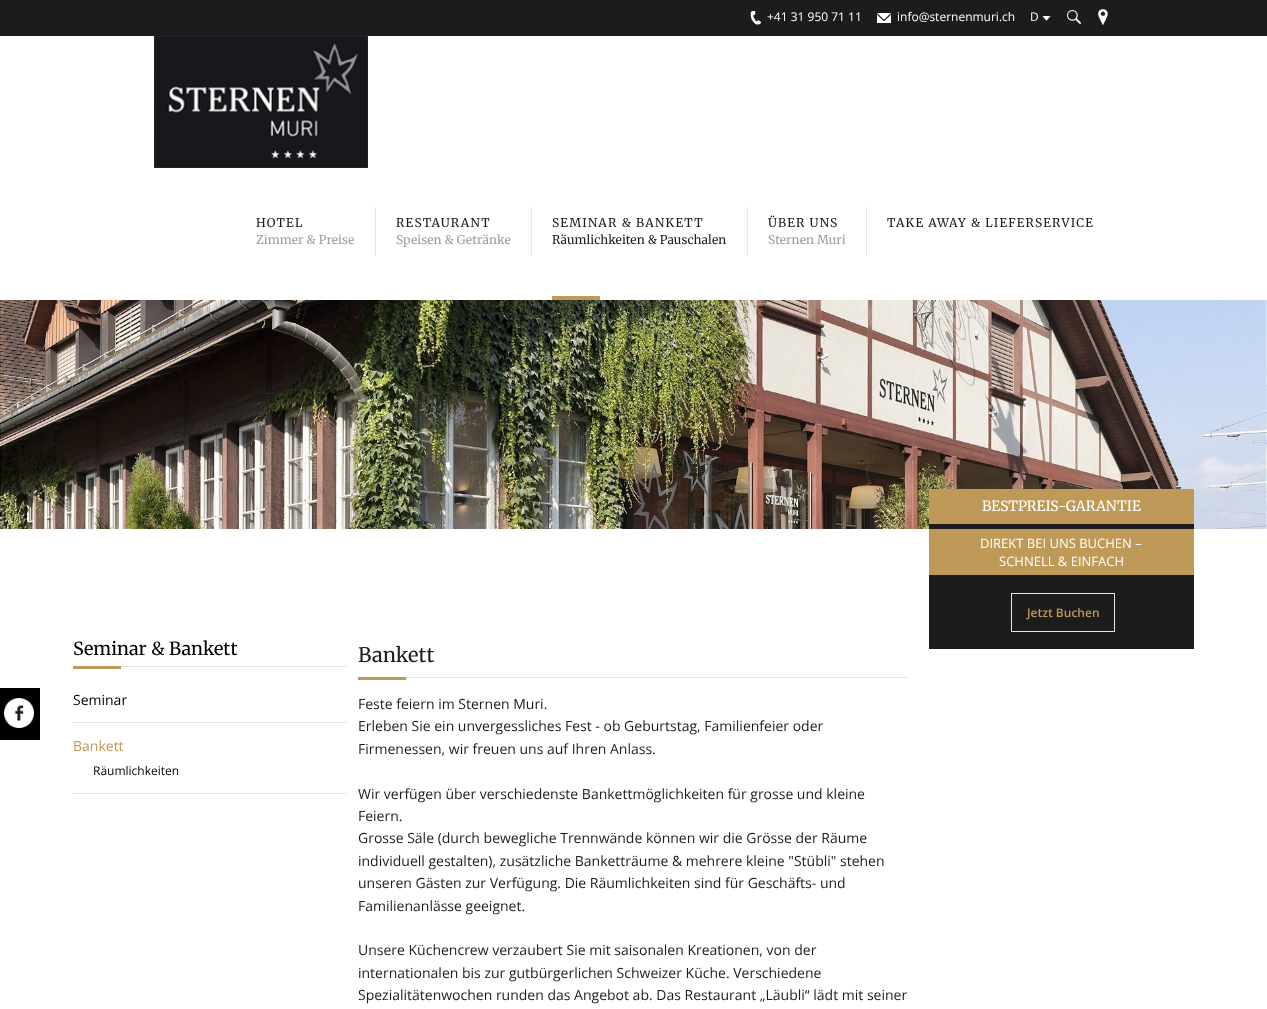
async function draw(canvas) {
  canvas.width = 1267;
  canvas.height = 1009;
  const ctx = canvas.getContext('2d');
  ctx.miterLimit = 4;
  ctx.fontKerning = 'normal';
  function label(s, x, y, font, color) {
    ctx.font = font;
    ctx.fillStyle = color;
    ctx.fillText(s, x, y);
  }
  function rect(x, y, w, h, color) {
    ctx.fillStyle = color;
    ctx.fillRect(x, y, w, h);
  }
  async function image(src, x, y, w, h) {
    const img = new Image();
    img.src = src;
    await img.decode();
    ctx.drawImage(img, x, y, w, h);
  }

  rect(0, 0, 1267, 1009, '#fff');
  rect(0, 688, 40, 52, '#000');
  await image('assets/img1.png', 4, 698, 30, 30);
  rect(0, 0, 1267, 36, '#1c1c1c');
  await image('assets/img2.png', 750, 11, 11, 14);
  label('+41 31 950 71 11', 767, 21, '12px Open Sans', '#fff');
  await image('assets/img3.png', 877, 13, 14, 10);
  label('info@sternenmuri.ch', 897, 21, '12px Open Sans', '#fff');
  label('D', 1030, 21, '12px Open Sans', '#fff');
  await image('assets/img4.png', 1042, 16, 9, 5);
  await image('assets/img5.png', 1067, 10, 14, 14);
  await image('assets/img6.png', 1098, 9, 10, 16);
  await image('assets/img7.png', 154, 36, 214, 132);
  rect(375, 207, 1, 49, '#e6e6e6');
  ctx.letterSpacing = '1.2px';
  label('HOTEL', 256, 227, '12px Merriweather', '#1c1c1c');
  ctx.letterSpacing = '0.1px';
  label('Zimmer & Preise', 256, 244, '12px Merriweather', '#a09d9d');
  rect(531, 207, 1, 49, '#e6e6e6');
  ctx.letterSpacing = '1.2px';
  label('RESTAURANT', 396, 227, '12px Merriweather', '#1c1c1c');
  ctx.letterSpacing = '0.1px';
  label('Speisen & Getränke', 396, 244, '12px Merriweather', '#a09d9d');
  rect(747, 207, 1, 49, '#e6e6e6');
  ctx.letterSpacing = '1.2px';
  label('SEMINAR & BANKETT', 552, 227, '12px Merriweather', '#1c1c1c');
  ctx.letterSpacing = '0.1px';
  label('Räumlichkeiten & Pauschalen', 552, 244, '12px Merriweather', '#1c1c1c');
  rect(552, 296, 48, 4, '#bf9958');
  rect(866, 207, 1, 49, '#e6e6e6');
  ctx.letterSpacing = '1.2px';
  label('ÜBER UNS', 768, 227, '12px Merriweather', '#1c1c1c');
  ctx.letterSpacing = '0.1px';
  label('Sternen Muri', 768, 244, '12px Merriweather', '#a09d9d');
  ctx.letterSpacing = '1.2px';
  label('TAKE AWAY & LIEFERSERVICE', 887, 227, '12px Merriweather', '#1c1c1c');
  await image('assets/img8.png', 0, 300, 1267, 229);
  rect(929, 524, 265, 125, '#1c1c1c');
  rect(929, 489, 265, 35, '#bf9958');
  ctx.letterSpacing = '0px';
  label('BESTPREIS-GARANTIE', 982, 511, '14px Merriweather', '#fff');
  rect(929, 529, 265, 46, '#bf9958');
  label('DIREKT BEI UNS BUCHEN –', 980, 548, '13px Open Sans', '#fff');
  label('SCHNELL & EINFACH', 999, 566, '13px Open Sans', '#fff');
  ctx.strokeStyle = '#e6e6e6';
  ctx.strokeRect(1011.5, 593.5, 103, 38);
  label('Jetzt Buchen', 1027, 617, '600 12px Open Sans', '#bf9958');
  rect(121, 666, 226, 1, '#e6e6e6');
  label('Seminar & Bankett', 73, 655, '18px Merriweather', '#000');
  rect(73, 666, 48, 3, '#bf9958');
  rect(73, 722, 274, 1, '#e6e6e6');
  label('Seminar', 73, 705, '14px Open Sans', '#000');
  rect(73, 793, 274, 1, '#e6e6e6');
  label('Bankett', 73, 751, '14px Open Sans', '#bf9958');
  label('Räumlichkeiten', 93, 775, '12px Open Sans', '#000');
  rect(406, 677, 503, 1, '#e6e6e6');
  label('Bankett', 358, 662, '20px Merriweather', '#1c1c1c');
  rect(358, 677, 48, 3, '#bf9958');
  label('Feste feiern im Sternen Muri.', 358, 709, '14px Open Sans', '#1c1c1c');
  label('Erleben Sie ein unvergessliches Fest - ob Geburtstag, Familienfeier oder', 358, 731, '14px Open Sans', '#1c1c1c');
  label('Firmenessen, wir freuen uns auf Ihren Anlass.', 358, 754, '14px Open Sans', '#1c1c1c');
  label('Wir verfügen über verschiedenste Bankettmöglichkeiten für grosse und kleine', 358, 799, '14px Open Sans', '#1c1c1c');
  label('Feiern.', 358, 821, '14px Open Sans', '#1c1c1c');
  label('Grosse Säle (durch bewegliche Trennwände können wir die Grösse der Räume', 358, 843, '14px Open Sans', '#1c1c1c');
  label('individuell gestalten), zusätzliche Banketträume & mehrere kleine "Stübli" stehen', 358, 866, '14px Open Sans', '#1c1c1c');
  label('unseren Gästen zur Verfügung. Die Räumlichkeiten sind für Geschäfts- und', 358, 888, '14px Open Sans', '#1c1c1c');
  label('Familienanlässe geeignet.', 358, 911, '14px Open Sans', '#1c1c1c');
  label('Unsere Küchencrew verzaubert Sie mit saisonalen Kreationen, von der', 358, 955, '14px Open Sans', '#1c1c1c');
  label('internationalen bis zur gutbürgerlichen Schweizer Küche. Verschiedene', 358, 978, '14px Open Sans', '#1c1c1c');
  label('Spezialitätenwochen runden das Angebot ab. Das Restaurant „Läubli“ lädt mit seiner', 358, 1000, '14px Open Sans', '#1c1c1c');
}

draw(document.querySelector('canvas'));
